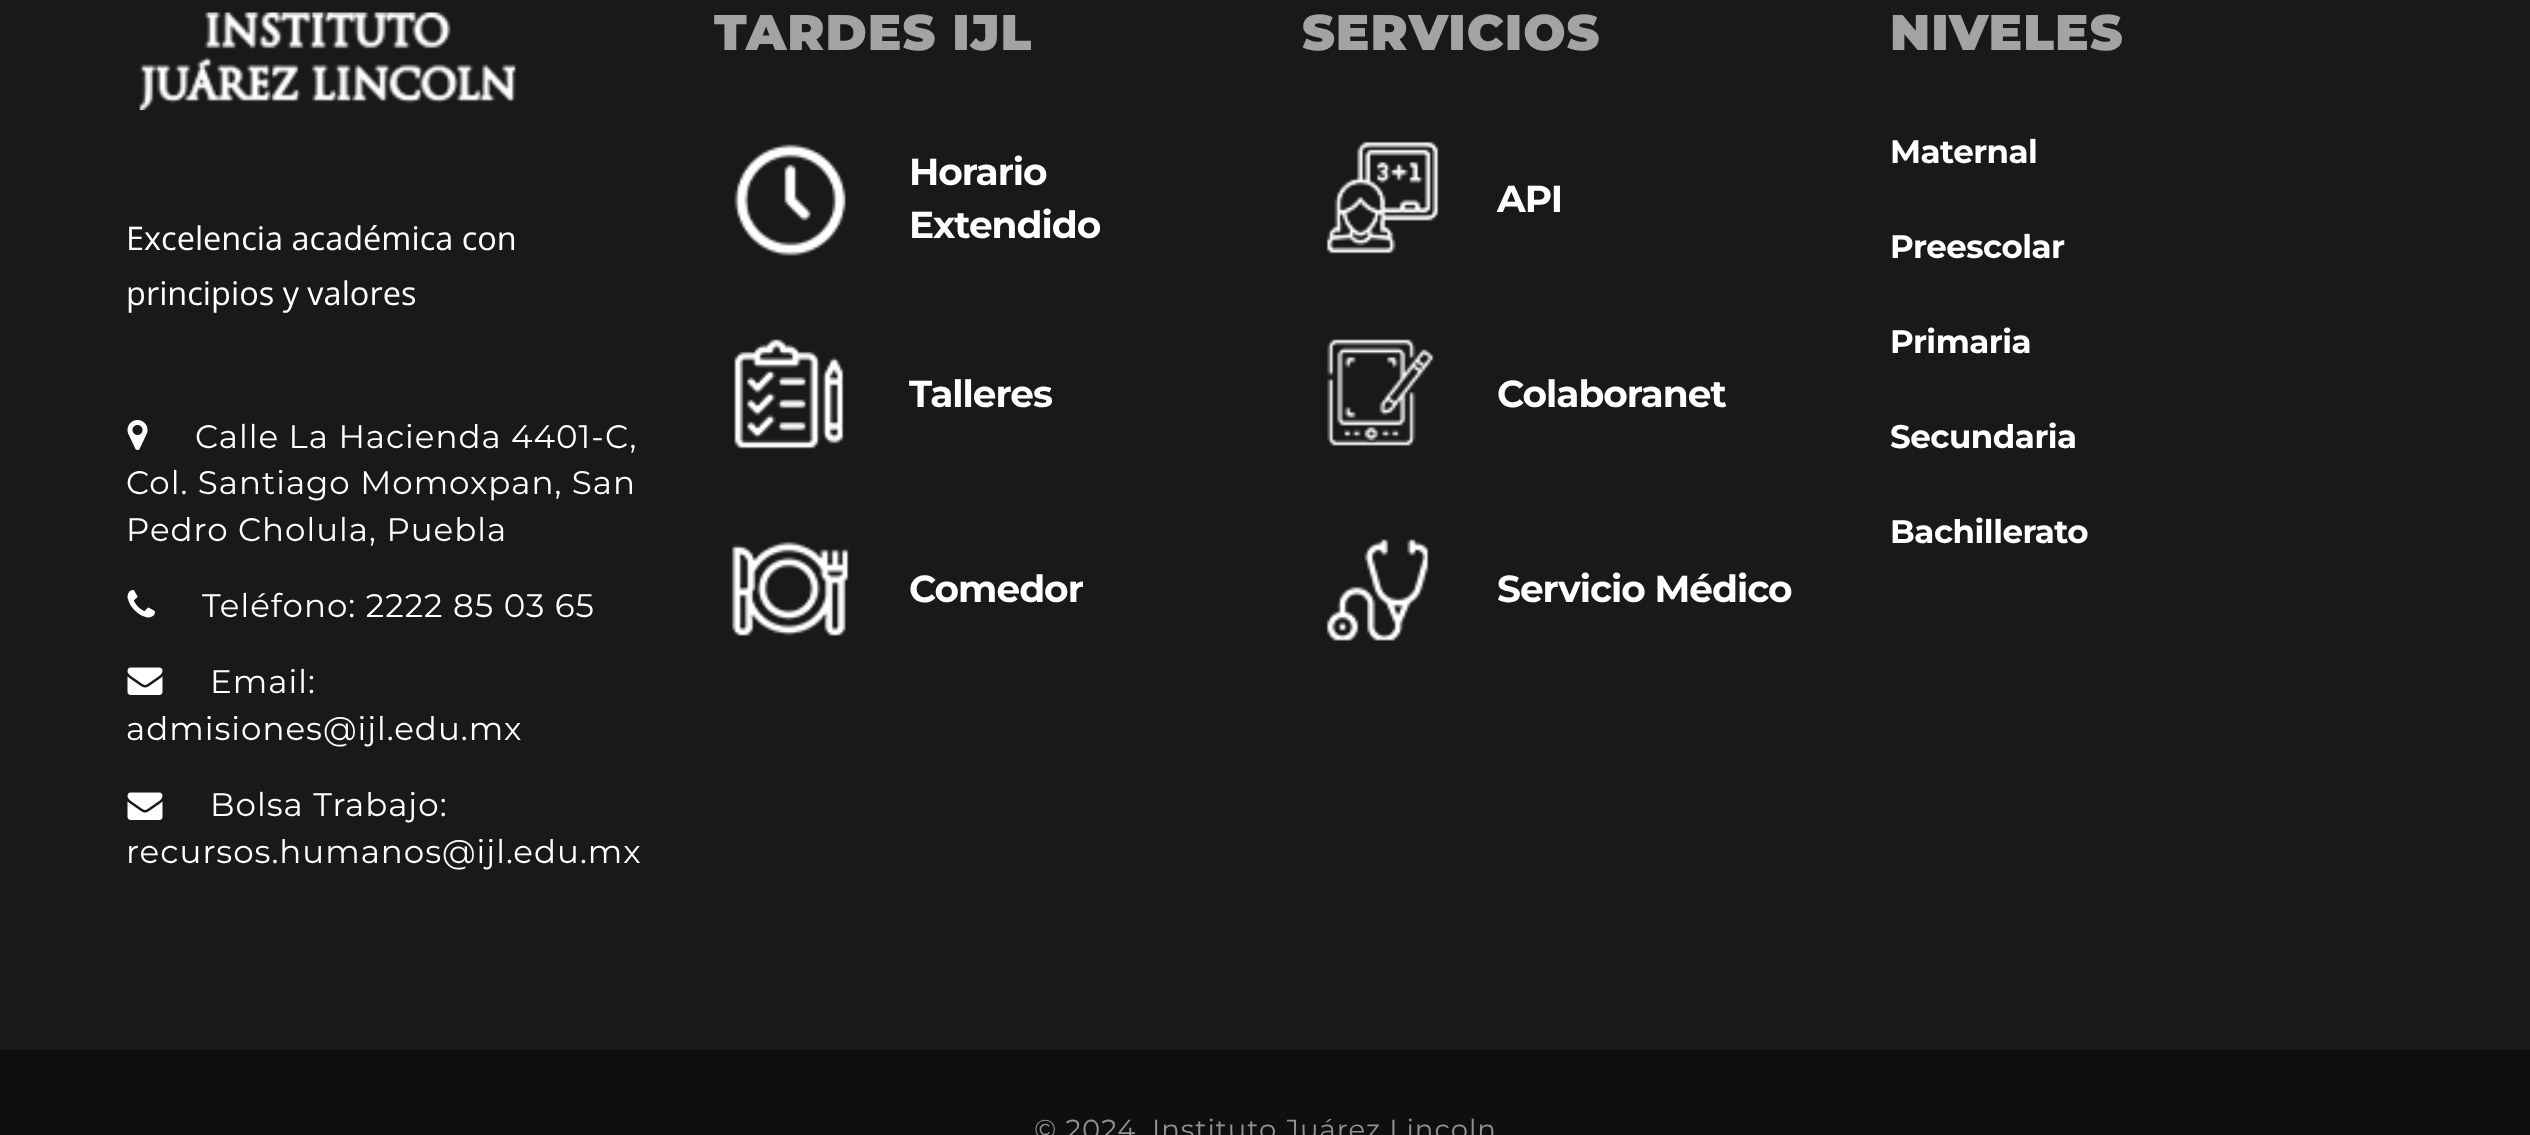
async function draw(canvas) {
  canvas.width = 2530;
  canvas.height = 1135;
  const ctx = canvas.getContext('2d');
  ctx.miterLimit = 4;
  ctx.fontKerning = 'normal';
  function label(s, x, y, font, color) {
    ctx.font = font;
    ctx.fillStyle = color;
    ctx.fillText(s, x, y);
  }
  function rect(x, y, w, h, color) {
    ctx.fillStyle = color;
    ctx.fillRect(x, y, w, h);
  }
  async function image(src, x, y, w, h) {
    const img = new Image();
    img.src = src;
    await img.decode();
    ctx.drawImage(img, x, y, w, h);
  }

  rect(0, 0, 2530, 1135, '#0f0f0f');
  rect(0, 0, 2530, 1050, '#191919');
  await image('assets/img1.png', 139, 12, 377, 98);
  label('Excelencia académica con', 126, 250, '32.5px Open Sans', '#fff');
  label('principios y valores', 126, 305, '32.5px Open Sans', '#fff');
  await image('assets/img2.png', 127, 420, 21, 30);
  ctx.letterSpacing = '1px';
  label('Calle La Hacienda 4401-C,', 195, 448, '32.5px Montserrat', '#fff');
  label('Col. Santiago Momoxpan, San', 126, 494, '32.5px Montserrat', '#fff');
  label('Pedro Cholula, Puebla', 126, 541, '32.5px Montserrat', '#fff');
  await image('assets/img3.png', 127, 590, 28, 28);
  label('Teléfono: 2222 85 03 65', 202, 617, '32.5px Montserrat', '#fff');
  await image('assets/img4.png', 127, 667, 36, 28);
  label('Email:', 210, 693, '32.5px Montserrat', '#fff');
  label('admisiones@ijl.edu.mx', 126, 740, '32.5px Montserrat', '#fff');
  await image('assets/img4.png', 127, 792, 36, 28);
  label('Bolsa Trabajo:', 210, 816, '32.5px Montserrat', '#fff');
  label('recursos.humanos@ijl.edu.mx', 126, 863, '32.5px Montserrat', '#fff');
  label('TARDES IJL', 714, 50, '900 50px Montserrat', '#a3a3a3');
  await image('assets/img5.png', 734, 144, 112, 112);
  ctx.letterSpacing = '-1px';
  label('Horario', 909, 185, 'bold 37.5px Montserrat', '#fff');
  label('Extendido', 909, 238, 'bold 37.5px Montserrat', '#fff');
  await image('assets/img6.png', 734, 339, 110, 110);
  label('Talleres', 909, 407, 'bold 37.5px Montserrat', '#fff');
  await image('assets/img7.png', 731, 541, 118, 95);
  label('Comedor', 909, 602, 'bold 37.5px Montserrat', '#fff');
  ctx.letterSpacing = '1px';
  label('SERVICIOS', 1302, 50, '900 50px Montserrat', '#a3a3a3');
  await image('assets/img8.png', 1326, 141, 113, 113);
  ctx.letterSpacing = '-1px';
  label('API', 1497, 212, 'bold 37.5px Montserrat', '#fff');
  await image('assets/img9.png', 1327, 339, 107, 107);
  label('Colaboranet', 1497, 407, 'bold 37.5px Montserrat', '#fff');
  await image('assets/img10.png', 1326, 539, 103, 102);
  label('Servicio Médico', 1497, 602, 'bold 37.5px Montserrat', '#fff');
  ctx.letterSpacing = '1px';
  label('NIVELES', 1890, 50, '900 50px Montserrat', '#a3a3a3');
  ctx.letterSpacing = '-0.5px';
  label('Maternal', 1890, 163, 'bold 32.5px Montserrat', '#fff');
  label('Preescolar', 1890, 258, 'bold 32.5px Montserrat', '#fff');
  label('Primaria', 1890, 353, 'bold 32.5px Montserrat', '#fff');
  label('Secundaria', 1890, 448, 'bold 32.5px Montserrat', '#fff');
  label('Bachillerato', 1890, 543, 'bold 32.5px Montserrat', '#fff');
  ctx.letterSpacing = '1px';
  label('© 2024. Instituto Juárez Lincoln', 1034, 1139, '27.5px Montserrat', '#929292');
}

draw(document.querySelector('canvas'));
